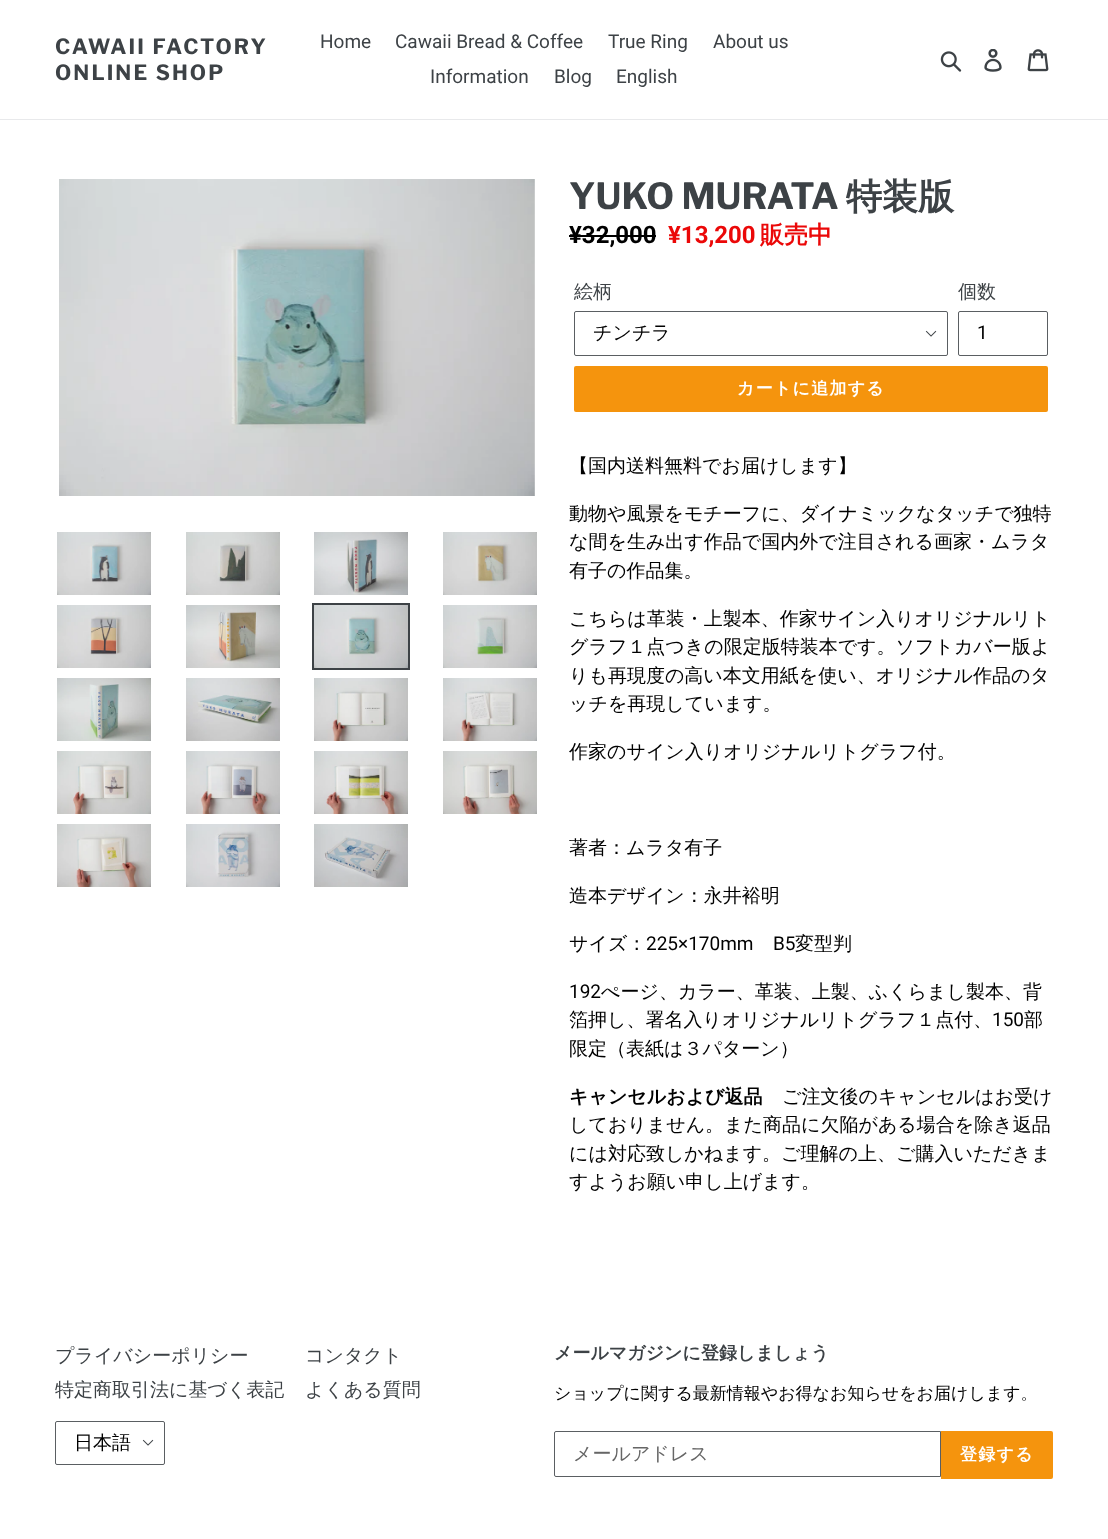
async function draw(canvas) {
  canvas.width = 1108;
  canvas.height = 1539;
  const ctx = canvas.getContext('2d');
  ctx.miterLimit = 4;
  ctx.fontKerning = 'normal';
  function label(s, x, y, font, color) {
    ctx.font = font;
    ctx.fillStyle = color;
    ctx.fillText(s, x, y);
  }
  function rect(x, y, w, h, color) {
    ctx.fillStyle = color;
    ctx.fillRect(x, y, w, h);
  }
  function roundedRect(x, y, w, h, r, color) {
    ctx.fillStyle = color;
    ctx.beginPath();
    ctx.roundRect(x, y, w, h, r);
    ctx.fill();
  }
  async function image(src, x, y, w, h) {
    const img = new Image();
    img.src = src;
    await img.decode();
    ctx.drawImage(img, x, y, w, h);
  }

  rect(0, 0, 1108, 1539, '#fff');
  rect(0, 119, 1108, 1, '#e8e9eb');
  ctx.letterSpacing = '2.1px';
  label('CAWAII FACTORY', 55, 54, 'bold 21px Libre Franklin', '#3d4246');
  label('ONLINE SHOP', 55, 80, 'bold 21px Libre Franklin', '#3d4246');
  ctx.letterSpacing = '0px';
  label('Home', 320, 48, '19px Roboto', '#3d4246');
  label('Cawaii Bread & Coffee', 395, 48, '19px Roboto', '#3d4246');
  label('True Ring', 608, 48, '19px Roboto', '#3d4246');
  label('About us', 713, 48, '19px Roboto', '#3d4246');
  label('Information', 430, 83, '19px Roboto', '#3d4246');
  label('Blog', 554, 83, '19px Roboto', '#3d4246');
  label('English', 616, 83, '19px Roboto', '#3d4246');
  await image('assets/img1.png', 940, 51, 22, 21);
  await image('assets/img2.png', 984, 49, 18, 23);
  await image('assets/img3.png', 1027, 49, 22, 23);
  await image('assets/img4.png', 59, 179, 476, 317);
  await image('assets/img5.png', 57, 532, 94, 63);
  await image('assets/img6.png', 186, 532, 94, 63);
  await image('assets/img7.png', 314, 532, 94, 63);
  await image('assets/img8.png', 443, 532, 94, 63);
  await image('assets/img9.png', 57, 605, 94, 63);
  await image('assets/img10.png', 186, 605, 94, 63);
  ctx.strokeStyle = '#3d4246';
  ctx.lineWidth = 2;
  ctx.strokeRect(313, 604, 96, 65);
  await image('assets/img11.png', 314, 605, 94, 63);
  await image('assets/img12.png', 443, 605, 94, 63);
  await image('assets/img13.png', 57, 678, 94, 63);
  await image('assets/img14.png', 186, 678, 94, 63);
  await image('assets/img15.png', 314, 678, 94, 63);
  await image('assets/img16.png', 443, 678, 94, 63);
  await image('assets/img17.png', 57, 751, 94, 63);
  await image('assets/img18.png', 186, 751, 94, 63);
  await image('assets/img19.png', 314, 751, 94, 63);
  await image('assets/img20.png', 443, 751, 94, 63);
  await image('assets/img21.png', 57, 824, 94, 63);
  await image('assets/img22.png', 186, 824, 94, 63);
  await image('assets/img23.png', 314, 824, 94, 63);
  label('YUKO MURATA', 569, 209, 'bold 36px Libre Franklin', '#3d4246');
  label('特装版', 846, 209, 'bold 36px WenQuanYi Zen Hei', '#3d4246');
  label('¥32,000', 569, 243, 'bold 24px Roboto', '#000');
  rect(569, 235, 87, 2, '#000');
  label('¥13,200', 668, 243, 'bold 24px Roboto', '#eb0808');
  label('販売中', 760, 243, 'bold 24px WenQuanYi Zen Hei', '#eb0808');
  label('絵柄', 574, 298, '500 19px WenQuanYi Zen Hei', '#3d4246');
  await image('assets/img24.png', 925, 330, 12, 7);
  ctx.beginPath();
  ctx.roundRect(574.5, 311.5, 373, 44, 1.5);
  ctx.strokeStyle = '#5a5e62';
  ctx.lineWidth = 1;
  ctx.stroke();
  label('チンチラ', 593, 339, '500 19px WenQuanYi Zen Hei', '#000');
  label('個数', 958, 298, '500 19px WenQuanYi Zen Hei', '#3d4246');
  ctx.beginPath();
  ctx.roundRect(958.5, 311.5, 89, 44, 1.5);
  ctx.stroke();
  label('1', 977, 339, '19px Roboto', '#000');
  roundedRect(574, 366, 474, 46, 2, '#f5940d');
  ctx.letterSpacing = '1.25px';
  label('カートに追加する', 737, 394, 'bold 17px WenQuanYi Zen Hei', '#fff');
  ctx.letterSpacing = '0px';
  label('【国内送料無料でお届けします】', 569, 472, '500 19px WenQuanYi Zen Hei', '#000');
  label('動物や風景をモチーフに、ダイナミックなタッチで独特', 569, 520, '500 19px WenQuanYi Zen Hei', '#000');
  label('な間を生み出す作品で国内外で注目される画家・ムラタ', 569, 548, '500 19px WenQuanYi Zen Hei', '#000');
  label('有子の作品集。', 569, 577, '500 19px WenQuanYi Zen Hei', '#000');
  label('こちらは革装・上製本、作家サイン入りオリジナルリト', 569, 625, '500 19px WenQuanYi Zen Hei', '#000');
  label('グラフ１点つきの限定版特装本です。ソフトカバー版よ', 569, 653, '500 19px WenQuanYi Zen Hei', '#000');
  label('りも再現度の高い本文用紙を使い、オリジナル作品のタ', 569, 682, '500 19px WenQuanYi Zen Hei', '#000');
  label('ッチを再現しています。', 569, 710, '500 19px WenQuanYi Zen Hei', '#000');
  label('作家のサイン入りオリジナルリトグラフ付。', 569, 758, '500 19px WenQuanYi Zen Hei', '#000');
  label('著者：ムラタ有子', 569, 854, '500 19px WenQuanYi Zen Hei', '#000');
  label('造本デザイン：永井裕明', 569, 902, '500 19px WenQuanYi Zen Hei', '#000');
  label('サイズ：', 569, 950, '500 19px WenQuanYi Zen Hei', '#000');
  label('225×170mm', 646, 950, '19px Roboto', '#000');
  label('B5', 773, 950, '19px Roboto', '#000');
  label('変型判', 795, 950, '500 19px WenQuanYi Zen Hei', '#000');
  label('192', 569, 998, '19px Roboto', '#000');
  label('ぺージ、カラー、革装、上製、ふくらまし製本、背', 601, 998, '500 19px WenQuanYi Zen Hei', '#000');
  label('箔押し、署名入りオリジナルリトグラフ１点付、', 569, 1026, '500 19px WenQuanYi Zen Hei', '#000');
  label('150', 992, 1026, '19px Roboto', '#000');
  label('部', 1024, 1026, '500 19px WenQuanYi Zen Hei', '#000');
  label('限定（表紙は３パターン）', 569, 1055, '500 19px WenQuanYi Zen Hei', '#000');
  label('キャンセルおよび返品', 569, 1103, 'bold 19px WenQuanYi Zen Hei', '#000');
  label('ご注文後のキャンセルはお受け', 782, 1103, '500 19px WenQuanYi Zen Hei', '#000');
  label('しておりません。また商品に欠陥がある場合を除き返品', 569, 1131, '500 19px WenQuanYi Zen Hei', '#000');
  label('には対応致しかねます。ご理解の上、ご購入いただきま', 569, 1160, '500 19px WenQuanYi Zen Hei', '#000');
  label('すようお願い申し上げます。', 569, 1188, '500 19px WenQuanYi Zen Hei', '#000');
  label('プライバシーポリシー', 55, 1362, '500 19px WenQuanYi Zen Hei', '#3d4246');
  label('特定商取引法に基づく表記', 55, 1396, '500 19px WenQuanYi Zen Hei', '#3d4246');
  await image('assets/img24.png', 142, 1439, 12, 7);
  ctx.beginPath();
  ctx.roundRect(55.5, 1421.5, 109, 43, 1.5);
  ctx.stroke();
  label('日本語', 74, 1449, '500 19px WenQuanYi Zen Hei', '#000');
  label('コンタクト', 305, 1362, '500 19px WenQuanYi Zen Hei', '#3d4246');
  label('よくある質問', 305, 1396, '500 19px WenQuanYi Zen Hei', '#3d4246');
  label('メールマガジンに登録しましょう', 554, 1359, 'bold 18px WenQuanYi Zen Hei', '#3d4246');
  label('ショップに関する最新情報やお得なお知らせをお届けします。', 554, 1399, '500 17px WenQuanYi Zen Hei', '#000');
  ctx.beginPath();
  ctx.roundRect(554.5, 1431.5, 386, 45, [1.5, 0, 0, 1.5]);
  ctx.stroke();
  label('メールアドレス', 573, 1460, '500 19px WenQuanYi Zen Hei', '#666');
  ctx.fillStyle = '#f5940d';
  ctx.beginPath();
  ctx.roundRect(941, 1431, 112, 48, [0, 2, 2, 0]);
  ctx.fill();
  ctx.letterSpacing = '1.25px';
  label('登録する', 960, 1460, 'bold 17px WenQuanYi Zen Hei', '#fff');
}

draw(document.querySelector('canvas'));
